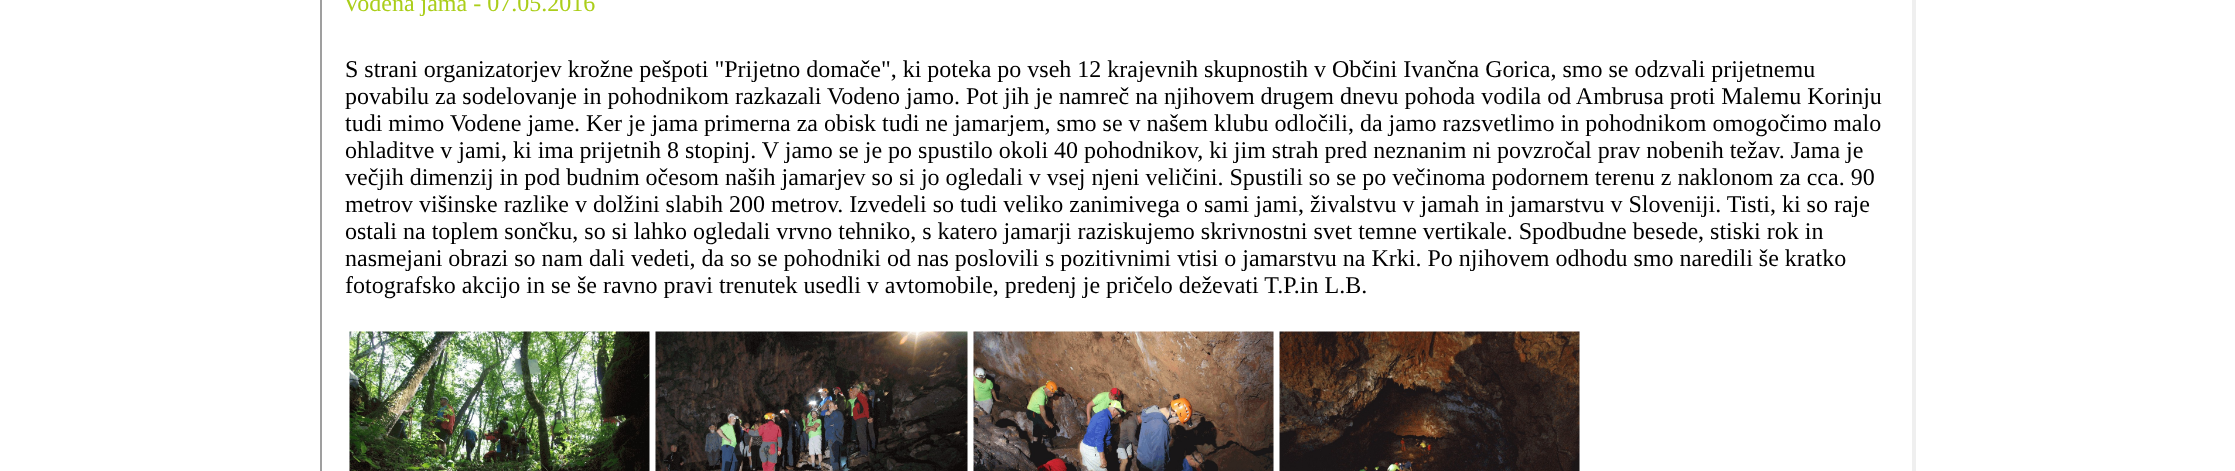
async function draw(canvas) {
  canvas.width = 2235;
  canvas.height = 471;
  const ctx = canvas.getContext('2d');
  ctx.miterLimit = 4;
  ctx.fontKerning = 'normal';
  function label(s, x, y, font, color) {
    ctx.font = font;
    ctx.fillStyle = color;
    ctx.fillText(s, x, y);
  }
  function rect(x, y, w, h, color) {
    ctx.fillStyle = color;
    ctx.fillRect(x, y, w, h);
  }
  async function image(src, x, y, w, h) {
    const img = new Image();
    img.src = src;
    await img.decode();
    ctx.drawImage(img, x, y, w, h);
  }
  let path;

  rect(0, 0, 2235, 471, '#fff');
  ctx.fillStyle = '#efefef';
  path = new Path2D('M1916-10V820L1912 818V-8Z');
  ctx.fill(path);
  ctx.fillStyle = '#9f9f9f';
  path = new Path2D('M320 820V-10L322-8V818Z');
  ctx.fill(path);
  label('Vodena jama - 07.05.2016', 343, 11, '24px Liberation Serif', '#abce1a');
  label('S strani organizatorjev krožne pešpoti "Prijetno domače", ki poteka po vseh 12 krajevnih skupnostih v Občini Ivančna Gorica, smo se odzvali prijetnemu', 345, 77, '24px Liberation Serif', '#000');
  label('povabilu za sodelovanje in pohodnikom razkazali Vodeno jamo. Pot jih je namreč na njihovem drugem dnevu pohoda vodila od Ambrusa proti Malemu Korinju', 345, 104, '24px Liberation Serif', '#000');
  label('tudi mimo Vodene jame. Ker je jama primerna za obisk tudi ne jamarjem, smo se v našem klubu odločili, da jamo razsvetlimo in pohodnikom omogočimo malo', 345, 131, '24px Liberation Serif', '#000');
  label('ohladitve v jami, ki ima prijetnih 8 stopinj. V jamo se je po spustilo okoli 40 pohodnikov, ki jim strah pred neznanim ni povzročal prav nobenih težav. Jama je', 345, 158, '24px Liberation Serif', '#000');
  label('večjih dimenzij in pod budnim očesom naših jamarjev so si jo ogledali v vsej njeni veličini. Spustili so se po večinoma podornem terenu z naklonom za cca. 90', 345, 185, '24px Liberation Serif', '#000');
  label('metrov višinske razlike v dolžini slabih 200 metrov. Izvedeli so tudi veliko zanimivega o sami jami, živalstvu v jamah in jamarstvu v Sloveniji. Tisti, ki so raje', 345, 212, '24px Liberation Serif', '#000');
  label('ostali na toplem sončku, so si lahko ogledali vrvno tehniko, s katero jamarji raziskujemo skrivnostni svet temne vertikale. Spodbudne besede, stiski rok in', 345, 239, '24px Liberation Serif', '#000');
  label('nasmejani obrazi so nam dali vedeti, da so se pohodniki od nas poslovili s pozitivnimi vtisi o jamarstvu na Krki. Po njihovem odhodu smo naredili še kratko', 345, 266, '24px Liberation Serif', '#000');
  label('fotografsko akcijo in se še ravno pravi trenutek usedli v avtomobile, predenj je pričelo deževati T.P.in L.B.', 345, 293, '24px Liberation Serif', '#000');
  await image('assets/img1.png', 349, 331, 301, 140);
  await image('assets/img2.png', 655, 331, 313, 140);
  await image('assets/img3.png', 973, 331, 301, 140);
  await image('assets/img4.png', 1279, 331, 301, 140);
}

draw(document.querySelector('canvas'));
